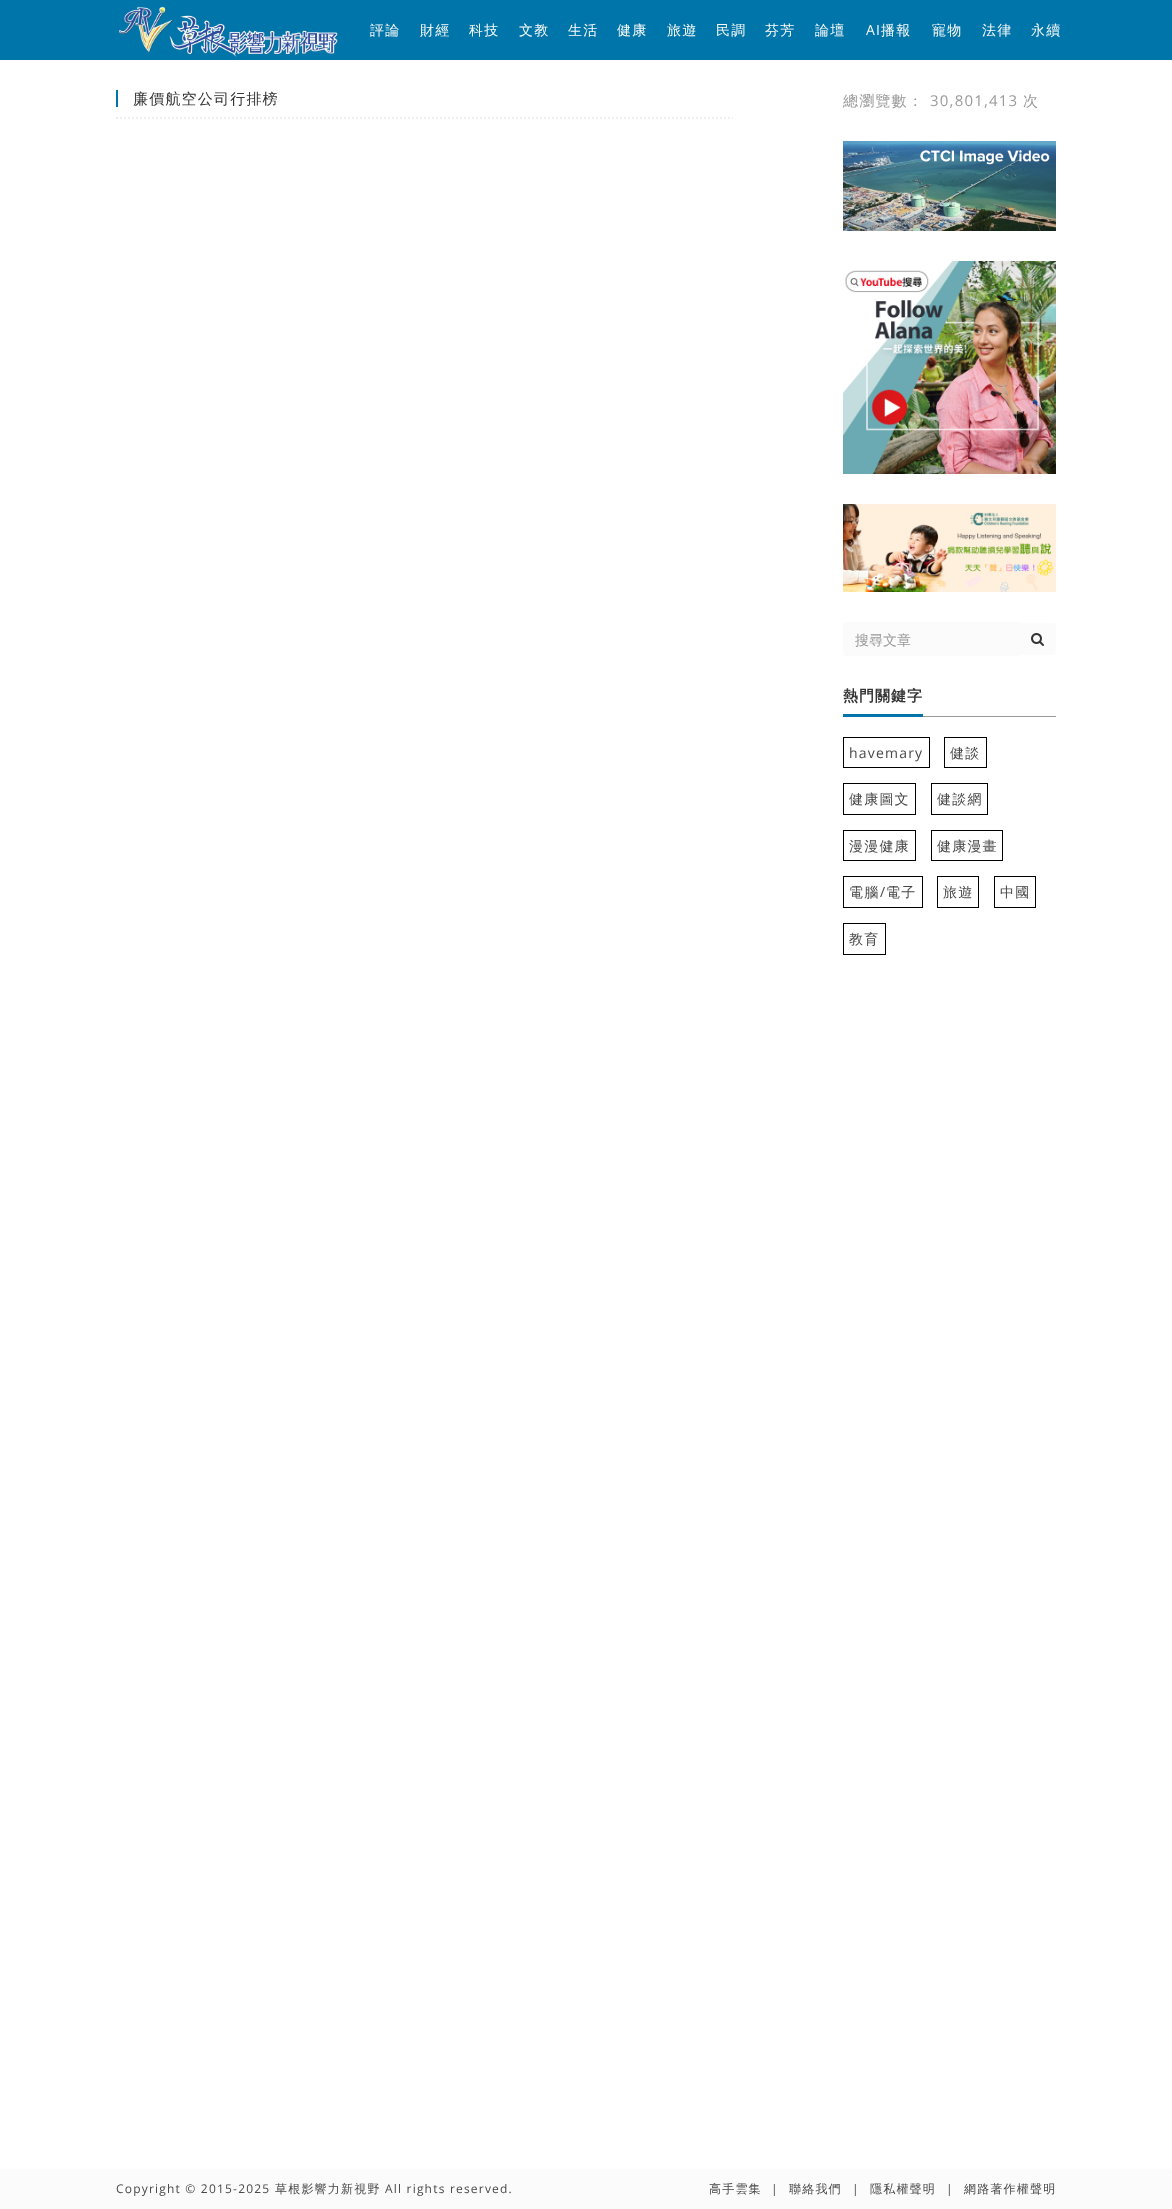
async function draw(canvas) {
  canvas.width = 1172;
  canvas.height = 2209;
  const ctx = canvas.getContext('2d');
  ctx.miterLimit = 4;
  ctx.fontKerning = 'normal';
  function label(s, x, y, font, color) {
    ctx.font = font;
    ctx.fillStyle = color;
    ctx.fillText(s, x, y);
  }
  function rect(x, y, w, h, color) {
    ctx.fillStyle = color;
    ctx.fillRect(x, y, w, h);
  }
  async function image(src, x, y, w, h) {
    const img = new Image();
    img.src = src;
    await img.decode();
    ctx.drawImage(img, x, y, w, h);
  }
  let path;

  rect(0, 0, 1172, 2209, '#fff');
  rect(0, 0, 1172, 60, '#0075a9');
  await image('assets/img1.png', 119, 6, 219, 51);
  ctx.letterSpacing = '1.2px';
  label('評論', 370, 35, '500 14px WenQuanYi Zen Hei', '#fbfbfb');
  label('財經', 420, 35, '500 14px WenQuanYi Zen Hei', '#fbfbfb');
  label('科技', 469, 35, '500 14px WenQuanYi Zen Hei', '#fbfbfb');
  label('文教', 519, 35, '500 14px WenQuanYi Zen Hei', '#fbfbfb');
  label('生活', 568, 35, '500 14px WenQuanYi Zen Hei', '#fbfbfb');
  label('健康', 617, 35, '500 14px WenQuanYi Zen Hei', '#fbfbfb');
  label('旅遊', 667, 35, '500 14px WenQuanYi Zen Hei', '#fbfbfb');
  label('民調', 716, 35, '500 14px WenQuanYi Zen Hei', '#fbfbfb');
  label('芬芳', 765, 35, '500 14px WenQuanYi Zen Hei', '#fbfbfb');
  label('論壇', 815, 35, '500 14px WenQuanYi Zen Hei', '#fbfbfb');
  label('AI', 866, 35, '14px Open Sans', '#fbfbfb');
  label('播報', 881, 35, '500 14px WenQuanYi Zen Hei', '#fbfbfb');
  label('寵物', 932, 35, '500 14px WenQuanYi Zen Hei', '#fbfbfb');
  label('法律', 982, 35, '500 14px WenQuanYi Zen Hei', '#fbfbfb');
  label('永續', 1031, 35, '500 14px WenQuanYi Zen Hei', '#fbfbfb');
  path = new Path2D('M116 118H733');
  ctx.strokeStyle = '#eee';
  ctx.lineWidth = 2;
  ctx.setLineDash([2, 2]);
  ctx.stroke(path);
  rect(116, 90, 2, 17, '#0075a9');
  label('廉價航空公司行排榜', 133, 104, '500 15px WenQuanYi Zen Hei', '#333');
  label('總瀏覽數：', 843, 106, '500 15px WenQuanYi Zen Hei', '#999');
  label('30,801,413', 930, 106, '15px Open Sans', '#999');
  label('次', 1023, 106, '500 15px WenQuanYi Zen Hei', '#999');
  ctx.fillStyle = '#00000033';
  ctx.filter = 'blur(0.5px)';
  ctx.beginPath();
  ctx.rect(843, 141, 213, 90);
  ctx.fill();
  ctx.filter = 'none';
  await image('assets/img2.png', 843, 141, 213, 90);
  ctx.filter = 'blur(0.5px)';
  ctx.beginPath();
  ctx.rect(843, 261, 213, 213);
  ctx.fill();
  ctx.filter = 'none';
  await image('assets/img3.png', 843, 261, 213, 213);
  ctx.filter = 'blur(0.5px)';
  ctx.beginPath();
  ctx.rect(843, 504, 213, 88);
  ctx.fill();
  ctx.filter = 'none';
  await image('assets/img4.png', 843, 504, 213, 88);
  ctx.fillStyle = '#fbfbfb';
  ctx.beginPath();
  ctx.roundRect(1019, 623, 37, 32, [0, 4, 4, 0]);
  ctx.fill();
  ctx.beginPath();
  ctx.roundRect(843, 622, 177, 34, [4, 0, 0, 4]);
  ctx.fill();
  ctx.letterSpacing = '0px';
  label('搜尋文章', 855, 645, '500 14px WenQuanYi Zen Hei', '#999');
  await image('assets/img5.png', 1031, 633, 13, 13);
  rect(923, 716, 133, 1, '#999');
  rect(843, 714, 80, 3, '#0075a9');
  ctx.letterSpacing = '1px';
  label('熱門關鍵字', 843, 701, 'bold 15px WenQuanYi Zen Hei', '#333');
  ctx.strokeStyle = '#000';
  ctx.lineWidth = 1;
  ctx.setLineDash([]);
  ctx.strokeRect(843.5, 737.5, 86, 30);
  ctx.letterSpacing = '1.2px';
  label('havemary', 849, 758, '14px Open Sans', '#484848');
  ctx.strokeRect(944.5, 737.5, 42, 30);
  label('健談', 950, 758, '500 14px WenQuanYi Zen Hei', '#484848');
  ctx.strokeRect(843.5, 783.5, 72, 31);
  label('健康圖文', 849, 804, '500 14px WenQuanYi Zen Hei', '#484848');
  ctx.strokeRect(931.5, 783.5, 56, 31);
  label('健談網', 937, 804, '500 14px WenQuanYi Zen Hei', '#484848');
  ctx.strokeRect(843.5, 830.5, 72, 30);
  label('漫漫健康', 849, 851, '500 14px WenQuanYi Zen Hei', '#484848');
  ctx.strokeRect(931.5, 830.5, 71, 30);
  label('健康漫畫', 937, 851, '500 14px WenQuanYi Zen Hei', '#484848');
  ctx.strokeRect(843.5, 876.5, 79, 31);
  label('電腦', 849, 897, '500 14px WenQuanYi Zen Hei', '#484848');
  label('/', 880, 897, '14px Open Sans', '#484848');
  label('電子', 886, 897, '500 14px WenQuanYi Zen Hei', '#484848');
  ctx.strokeRect(937.5, 876.5, 41, 31);
  label('旅遊', 943, 897, '500 14px WenQuanYi Zen Hei', '#484848');
  ctx.strokeRect(994.5, 876.5, 41, 31);
  label('中國', 1000, 897, '500 14px WenQuanYi Zen Hei', '#484848');
  ctx.strokeRect(843.5, 923.5, 42, 31);
  label('教育', 849, 944, '500 14px WenQuanYi Zen Hei', '#484848');
  rect(0, 2169, 1172, 40, '#fbfbfb');
  label('Copyright © 2015-2025', 116, 2193, '12px Open Sans', '#484848');
  label('草根影響力新視野', 275, 2193, '500 12px WenQuanYi Zen Hei', '#484848');
  label('All rights reserved.', 385, 2193, '12px Open Sans', '#484848');
  label('高手雲集', 709, 2193, '500 12px WenQuanYi Zen Hei', '#484848');
  label('|', 771, 2193, '12px Open Sans', '#484848');
  label('聯絡我們', 789, 2193, '500 12px WenQuanYi Zen Hei', '#484848');
  label('|', 852, 2193, '12px Open Sans', '#484848');
  label('隱私權聲明', 870, 2193, '500 12px WenQuanYi Zen Hei', '#484848');
  label('|', 946, 2193, '12px Open Sans', '#484848');
  label('網路著作權聲明', 964, 2193, '500 12px WenQuanYi Zen Hei', '#484848');
}

draw(document.querySelector('canvas'));
